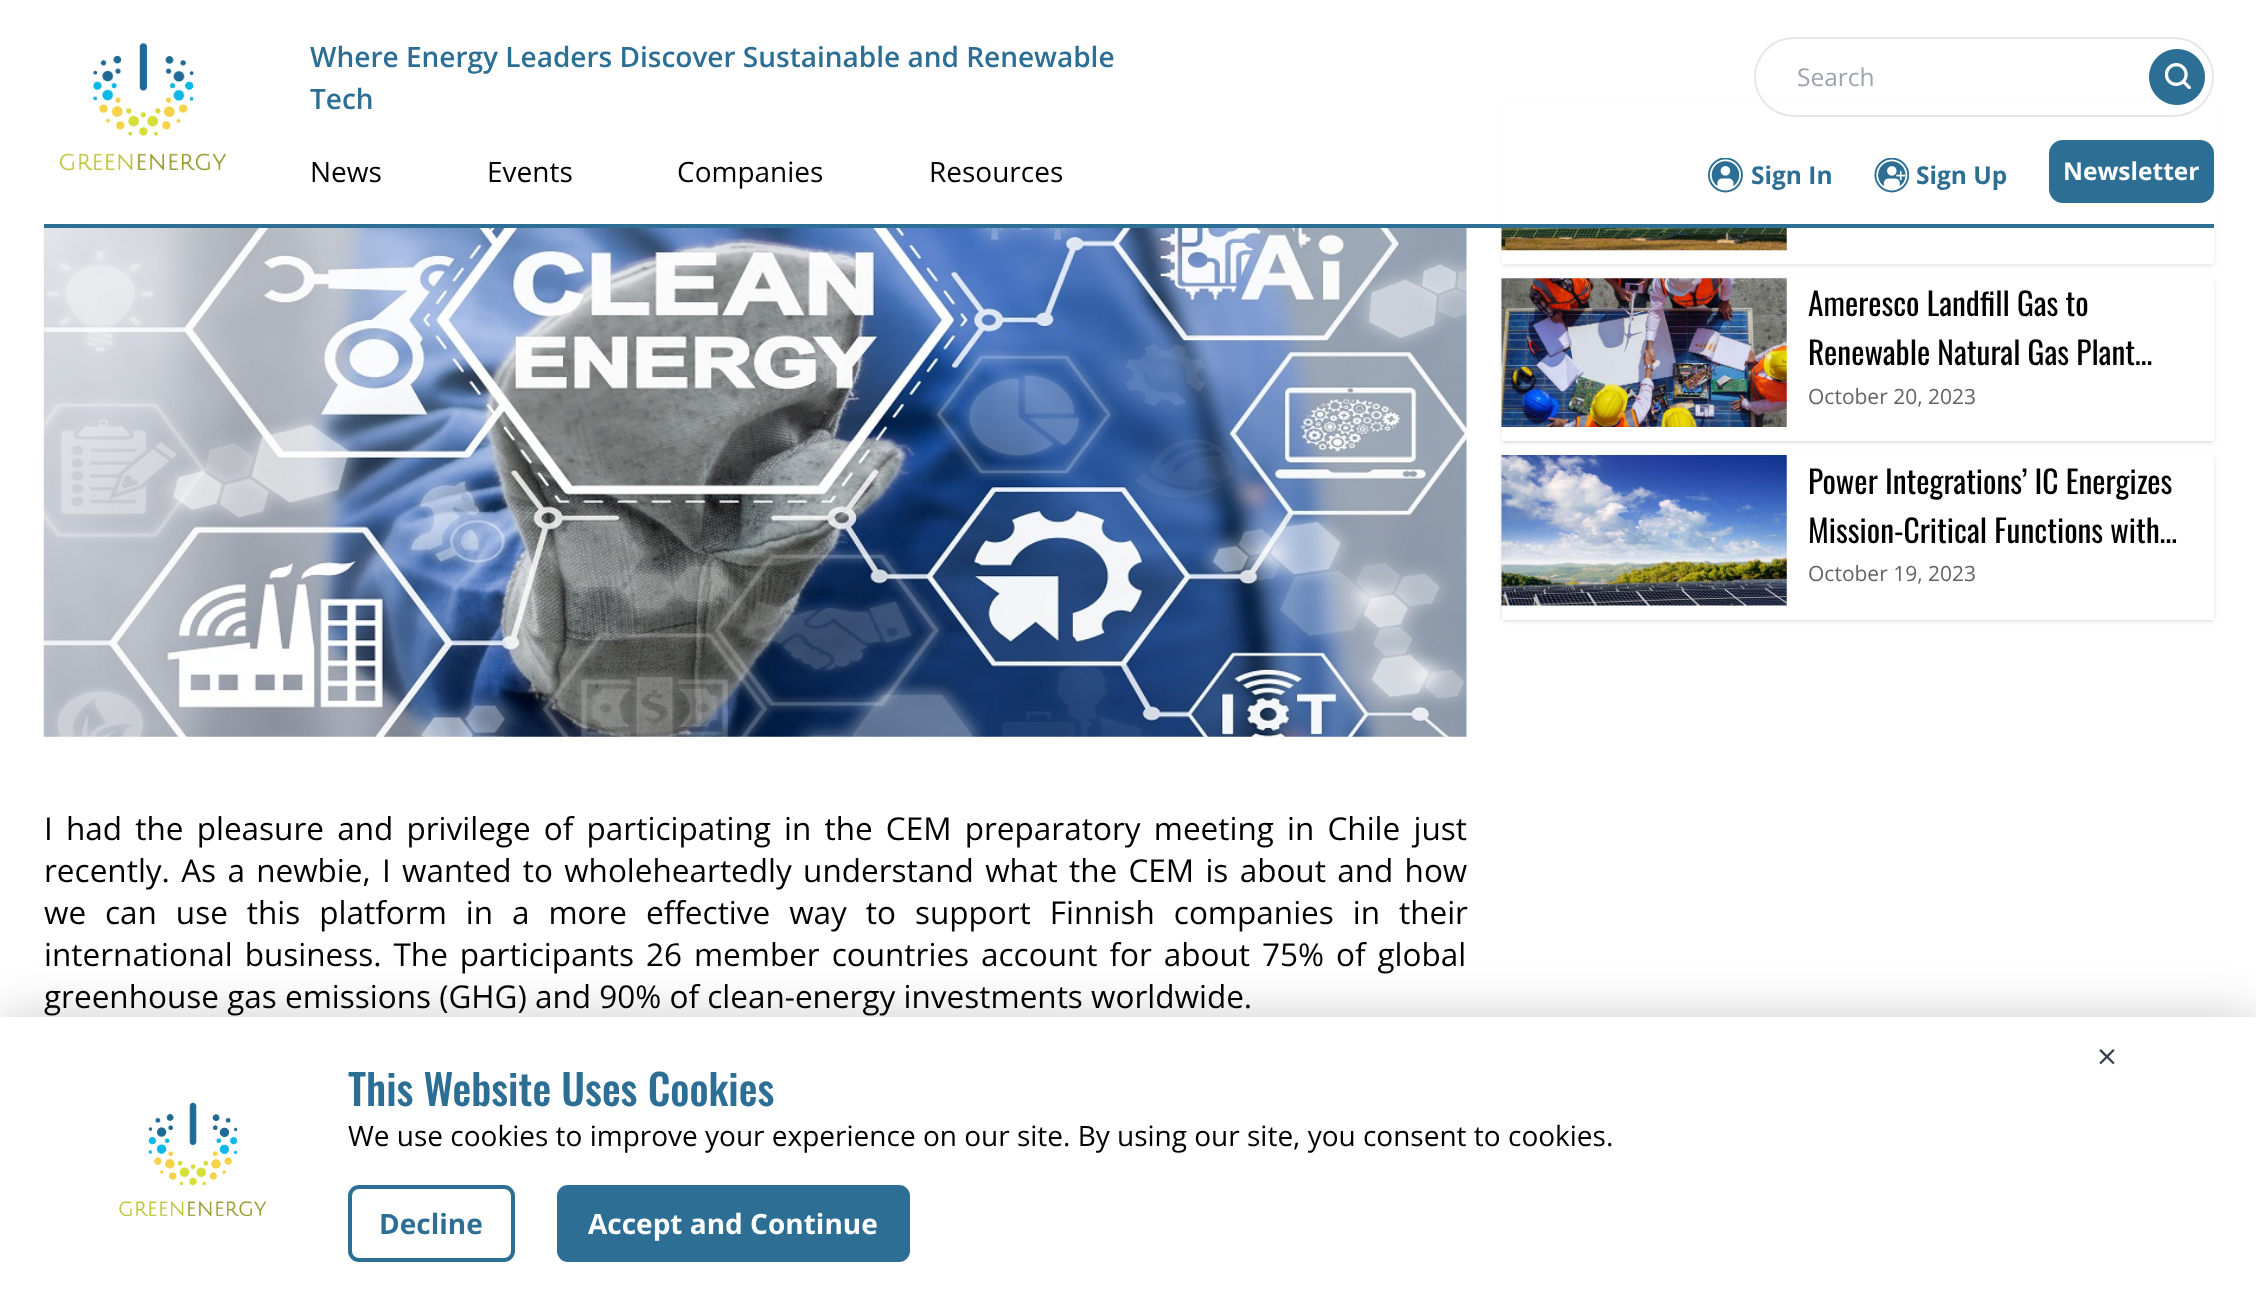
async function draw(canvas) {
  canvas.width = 2256;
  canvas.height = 1303;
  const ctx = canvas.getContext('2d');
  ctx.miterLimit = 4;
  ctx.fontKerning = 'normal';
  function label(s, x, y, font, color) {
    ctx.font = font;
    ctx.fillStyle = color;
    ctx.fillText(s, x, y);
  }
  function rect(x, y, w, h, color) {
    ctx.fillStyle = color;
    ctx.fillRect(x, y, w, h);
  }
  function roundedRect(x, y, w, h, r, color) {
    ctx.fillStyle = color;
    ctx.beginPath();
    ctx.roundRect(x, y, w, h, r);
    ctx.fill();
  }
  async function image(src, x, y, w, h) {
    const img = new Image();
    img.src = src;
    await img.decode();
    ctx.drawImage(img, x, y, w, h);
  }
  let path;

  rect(0, 0, 2256, 1303, '#fff');
  ctx.save();
  path = new Path2D('M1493 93H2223V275H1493ZM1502 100H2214V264H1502Z');
  ctx.clip(path, 'evenodd');
  ctx.fillStyle = '#0000001a';
  ctx.filter = 'blur(2.5px)';
  ctx.beginPath();
  ctx.rect(1502, 102, 712, 164);
  ctx.fill();
  ctx.filter = 'none';
  ctx.restore();
  rect(1499, 99, 718, 129, '#fff');
  rect(44, 224, 2170, 4, '#2d6e94');
  await image('assets/img1.png', 59, 42, 168, 129);
  label('Where Energy Leaders Discover Sustainable and Renewable', 310, 67, '600 28px Open Sans', '#2d6e94');
  label('Tech', 310, 109, '600 28px Open Sans', '#2d6e94');
  ctx.beginPath();
  ctx.roundRect(1755, 38, 458, 78, 39);
  ctx.strokeStyle = '#e5e7eb';
  ctx.lineWidth = 2;
  ctx.stroke();
  label('Search', 1797, 86, '24.5px Open Sans', '#9ca3af');
  await image('assets/img2.png', 2149, 49, 56, 56);
  label('News', 310, 182, '28px Open Sans', '#000');
  label('Events', 487, 182, '28px Open Sans', '#000');
  label('Companies', 677, 182, '28px Open Sans', '#000');
  label('Resources', 929, 182, '28px Open Sans', '#000');
  await image('assets/img3.png', 1708, 158, 35, 35);
  label('Sign In', 1751, 184, 'bold 24.5px Open Sans', '#2d6e94');
  await image('assets/img4.png', 1874, 158, 35, 35);
  label('Sign Up', 1916, 184, 'bold 24.5px Open Sans', '#2d6e94');
  roundedRect(2049, 140, 165, 63, 14, '#2d6e94');
  label('Newsletter', 2063, 180, 'bold 24.5px Open Sans', '#fff');
  await image('assets/img5.png', 1501, 228, 286, 23);
  ctx.save();
  ctx.beginPath();
  ctx.rect(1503, 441, 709, 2);
  ctx.clip();
  ctx.fillStyle = '#0000001a';
  ctx.filter = 'blur(2px)';
  ctx.beginPath();
  ctx.rect(1503, 282, 709, 159);
  ctx.fill();
  ctx.filter = 'none';
  ctx.restore();
  ctx.save();
  path = new Path2D('M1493 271H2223V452H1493ZM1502 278H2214V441H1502Z');
  ctx.clip(path, 'evenodd');
  ctx.fillStyle = '#0000001a';
  ctx.filter = 'blur(2.5px)';
  ctx.beginPath();
  ctx.rect(1502, 280, 712, 163);
  ctx.fill();
  ctx.filter = 'none';
  ctx.restore();
  await image('assets/img6.png', 1501, 278, 286, 149);
  label('Ameresco Landfill Gas to', 1808, 316, '31.5px Oswald', '#000');
  label('Renewable Natural Gas Plant…', 1808, 365, '31.5px Oswald', '#000');
  label('October 20, 2023', 1808, 404, '21px Open Sans', '#646464');
  ctx.save();
  path = new Path2D('M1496 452H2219V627H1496ZM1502 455H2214V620H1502Z');
  ctx.clip(path, 'evenodd');
  ctx.fillStyle = '#0000001a';
  ctx.filter = 'blur(2px)';
  ctx.beginPath();
  ctx.rect(1503, 459, 709, 161);
  ctx.fill();
  ctx.filter = 'none';
  ctx.restore();
  ctx.save();
  path = new Path2D('M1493 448H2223V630H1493ZM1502 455H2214V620H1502Z');
  ctx.clip(path, 'evenodd');
  ctx.fillStyle = '#0000001a';
  ctx.filter = 'blur(2.5px)';
  ctx.beginPath();
  ctx.rect(1502, 457, 712, 164);
  ctx.fill();
  ctx.filter = 'none';
  ctx.restore();
  await image('assets/img7.png', 1501, 455, 286, 151);
  label('Power Integrations’ IC Energizes', 1808, 494, '31.5px Oswald', '#000');
  label('Mission-Critical Functions with…', 1808, 543, '31.5px Oswald', '#000');
  label('October 19, 2023', 1808, 581, '21px Open Sans', '#646464');
  await image('assets/img8.png', 43, 228, 1424, 509);
  ctx.wordSpacing = '5px';
  label('I had the pleasure and privilege of participating in the CEM preparatory meeting in Chile just', 44, 840, '31.5px Open Sans', '#000');
  ctx.wordSpacing = '3.1px';
  label('recently. As a newbie, I wanted to wholeheartedly understand what the CEM is about and how', 44, 882, '31.5px Open Sans', '#000');
  ctx.wordSpacing = '10.75px';
  label('we can use this platform in a more effective way to support Finnish companies in their', 44, 924, '31.5px Open Sans', '#000');
  ctx.wordSpacing = '3.75px';
  label('international business. The participants 26 member countries account for about 75% of global', 44, 966, '31.5px Open Sans', '#000');
  ctx.wordSpacing = '0px';
  label('greenhouse gas emissions (GHG) and 90% of clean-energy investments worldwide.', 44, 1008, '31.5px Open Sans', '#000');
  ctx.fillStyle = '#00000033';
  ctx.filter = 'blur(24.5px)';
  ctx.beginPath();
  ctx.rect(0, 1017, 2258, 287);
  ctx.fill();
  ctx.filter = 'none';
  rect(0, 1017, 2256, 286, '#fff');
  label('×', 2097, 1069, '35px Open Sans', '#374151');
  await image('assets/img9.png', 119, 1102, 148, 115);
  label('This Website Uses Cookies', 348, 1106, '500 42px Oswald', '#2d6e94');
  label('We use cookies to improve your experience on our site. By using our site, you consent to cookies.', 348, 1146, '28px Open Sans', '#000');
  ctx.beginPath();
  ctx.roundRect(350, 1187, 163, 73, 9);
  ctx.strokeStyle = '#2d6e94';
  ctx.lineWidth = 4;
  ctx.stroke();
  label('Decline', 379, 1234, 'bold 28px Open Sans', '#2d6e94');
  ctx.beginPath();
  ctx.roundRect(559, 1187, 349, 73, 9);
  ctx.fill();
  ctx.stroke();
  label('Accept and Continue', 588, 1234, 'bold 28px Open Sans', '#fff');
}

draw(document.querySelector('canvas'));
